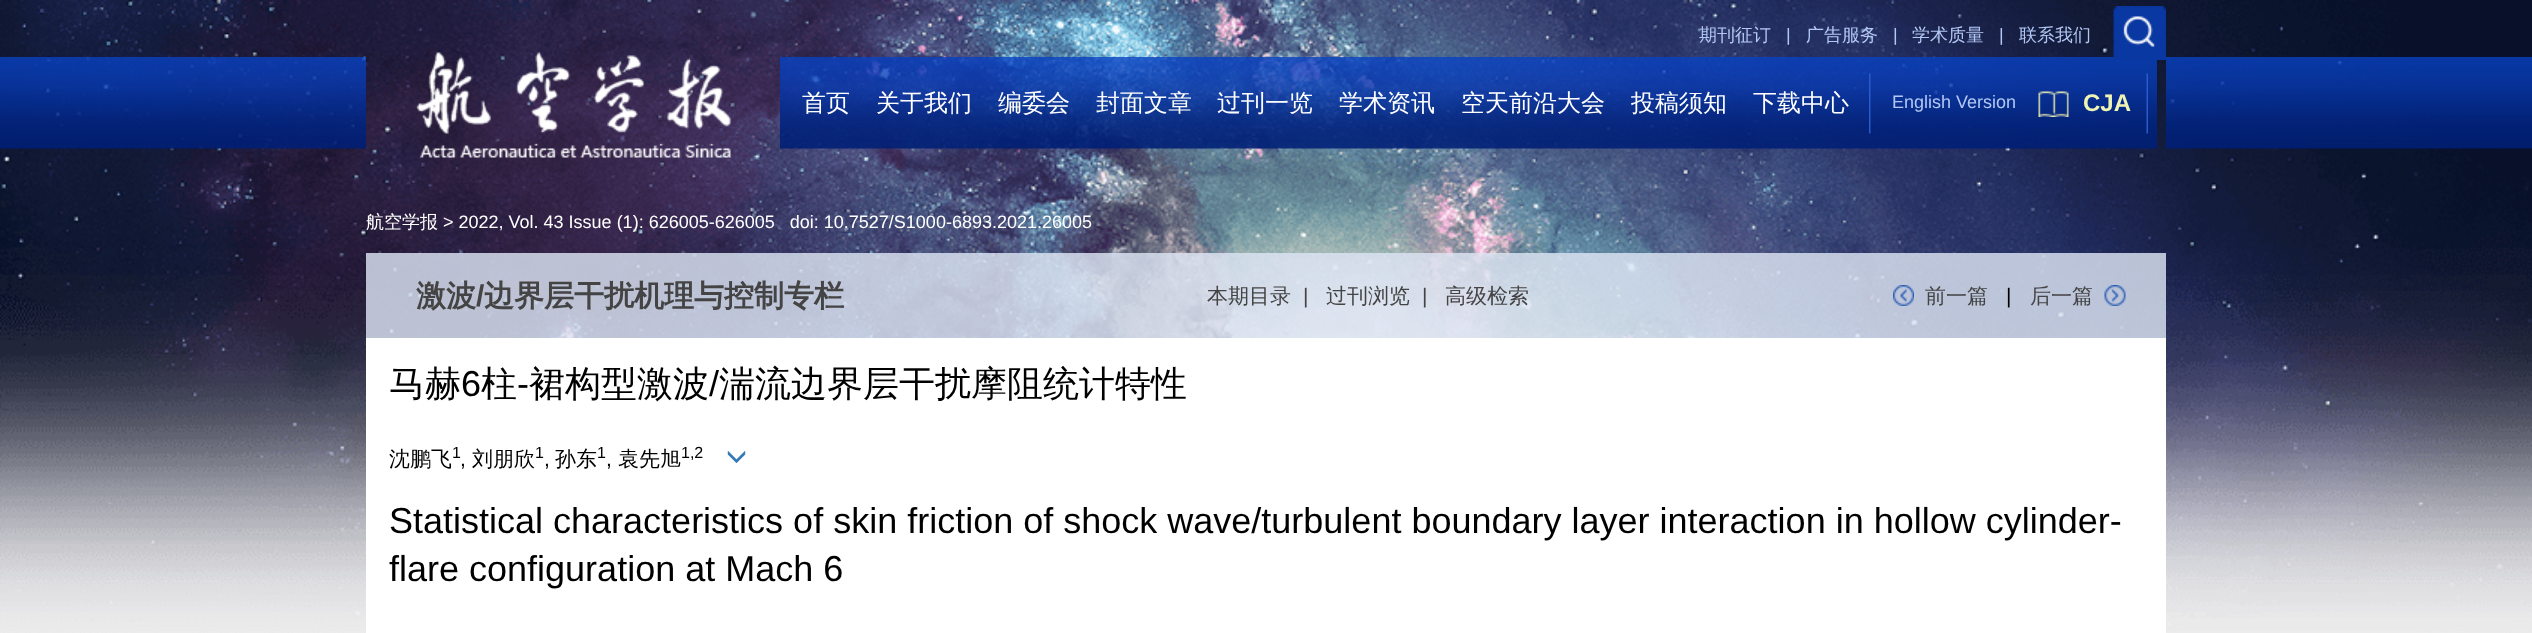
async function draw(canvas) {
  canvas.width = 2532;
  canvas.height = 633;
  const ctx = canvas.getContext('2d');
  ctx.miterLimit = 4;
  ctx.fontKerning = 'normal';
  function label(s, x, y, font, color) {
    ctx.font = font;
    ctx.fillStyle = color;
    ctx.fillText(s, x, y);
  }
  function rect(x, y, w, h, color) {
    ctx.fillStyle = color;
    ctx.fillRect(x, y, w, h);
  }
  async function image(src, x, y, w, h) {
    const img = new Image();
    img.src = src;
    await img.decode();
    ctx.drawImage(img, x, y, w, h);
  }

  rect(0, 0, 2532, 633, '#f1f1f1');
  await image('assets/img1.png', 0, 0, 2532, 633);
  label('期刊征订', 1699, 41, '500 18px WenQuanYi Zen Hei', '#b3c7f4');
  label('|', 1786, 41, '18px Liberation Sans', '#b3c7f4');
  label('广告服务', 1806, 41, '500 18px WenQuanYi Zen Hei', '#b3c7f4');
  label('|', 1893, 41, '18px Liberation Sans', '#b3c7f4');
  label('学术质量', 1912, 41, '500 18px WenQuanYi Zen Hei', '#b3c7f4');
  label('|', 1999, 41, '18px Liberation Sans', '#b3c7f4');
  label('联系我们', 2019, 41, '500 18px WenQuanYi Zen Hei', '#b3c7f4');
  await image('assets/img6.png', 1869, 57, 288, 92);
  await image('assets/img2.png', 2113, 6, 53, 54);
  await image('assets/img3.png', 0, 57, 366, 92);
  await image('assets/img4.png', 416, 52, 315, 106);
  await image('assets/img5.png', 780, 57, 1089, 92);
  label('首页', 802, 111, '500 24px WenQuanYi Zen Hei', '#fff');
  label('关于我们', 876, 111, '500 24px WenQuanYi Zen Hei', '#fff');
  label('编委会', 998, 111, '500 24px WenQuanYi Zen Hei', '#fff');
  label('封面文章', 1096, 111, '500 24px WenQuanYi Zen Hei', '#fff');
  label('过刊一览', 1217, 111, '500 24px WenQuanYi Zen Hei', '#fff');
  label('学术资讯', 1339, 111, '500 24px WenQuanYi Zen Hei', '#fff');
  label('空天前沿大会', 1461, 111, '500 24px WenQuanYi Zen Hei', '#fff');
  label('投稿须知', 1631, 111, '500 24px WenQuanYi Zen Hei', '#fff');
  label('下载中心', 1753, 111, '500 24px WenQuanYi Zen Hei', '#fff');
  await image('assets/img7.png', 1869, 73, 2, 61);
  label('English Version', 1892, 108, '18px Liberation Sans', '#b3c7f4');
  await image('assets/img8.png', 2146, 73, 2, 61);
  await image('assets/img9.png', 2038, 91, 31, 26);
  label('CJA', 2083, 111, 'bold 24px Liberation Sans', '#f0f4b3');
  await image('assets/img10.png', 2166, 57, 366, 92);
  label('航空学报', 366, 228, '500 18px WenQuanYi Zen Hei', '#fff');
  label('> 2022, Vol. 43 Issue (1): 626005-626005   doi: 10.7527/S1000-6893.2021.26005', 443, 228, '18px Liberation Sans', '#fff');
  rect(366, 253, 1800, 85, '#ffffffcc');
  rect(366, 253, 1800, 85, '#1f55b221');
  label('激波', 416, 306, 'bold 30px WenQuanYi Zen Hei', '#444');
  label('/', 476, 306, 'bold 30px Liberation Sans', '#444');
  label('边界层干扰机理与控制专栏', 484, 306, 'bold 30px WenQuanYi Zen Hei', '#444');
  label('本期目录', 1207, 303, '500 21px WenQuanYi Zen Hei', '#444');
  label('|', 1303, 303, '21px Liberation Sans', '#444');
  label('过刊浏览', 1326, 303, '500 21px WenQuanYi Zen Hei', '#444');
  label('|', 1422, 303, '21px Liberation Sans', '#444');
  label('高级检索', 1445, 303, '500 21px WenQuanYi Zen Hei', '#444');
  await image('assets/img11.png', 1893, 285, 21, 21);
  label('前一篇', 1925, 303, '500 21px WenQuanYi Zen Hei', '#444');
  label('|', 2006, 303, '21px Liberation Sans', '#000');
  label('后一篇', 2030, 303, '500 21px WenQuanYi Zen Hei', '#444');
  await image('assets/img12.png', 2104, 285, 22, 21);
  rect(366, 338, 1800, 295, '#fff');
  label('马赫', 389, 396, '500 36px WenQuanYi Zen Hei', '#000');
  label('6', 461, 396, '36px Liberation Sans', '#000');
  label('柱', 481, 396, '500 36px WenQuanYi Zen Hei', '#000');
  label('-', 517, 396, '36px Liberation Sans', '#000');
  label('裙构型激波', 529, 396, '500 36px WenQuanYi Zen Hei', '#000');
  label('/', 709, 396, '36px Liberation Sans', '#000');
  label('湍流边界层干扰摩阻统计特性', 719, 396, '500 36px WenQuanYi Zen Hei', '#000');
  label('沈鹏飞', 389, 466, '500 21px WenQuanYi Zen Hei', '#000');
  label('1', 452, 458, '16px Liberation Sans', '#000');
  label('刘朋欣', 472, 466, '500 21px WenQuanYi Zen Hei', '#000');
  label('1', 535, 458, '16px Liberation Sans', '#000');
  label('孙东', 555, 466, '500 21px WenQuanYi Zen Hei', '#000');
  label('1', 597, 458, '16px Liberation Sans', '#000');
  label('袁先旭', 618, 466, '500 21px WenQuanYi Zen Hei', '#000');
  label('1,2', 681, 458, '16px Liberation Sans', '#000');
  await image('assets/img13.png', 727, 451, 19, 12);
  label(',', 460, 466, '21px Liberation Sans', '#000');
  label(',', 544, 466, '21px Liberation Sans', '#000');
  label(',', 606, 466, '21px Liberation Sans', '#000');
  label('Statistical characteristics of skin friction of shock wave/turbulent boundary layer interaction in hollow cylinder-', 389, 533, '36px Liberation Sans', '#000');
  label('flare configuration at Mach 6', 389, 581, '36px Liberation Sans', '#000');
}

draw(document.querySelector('canvas'));
